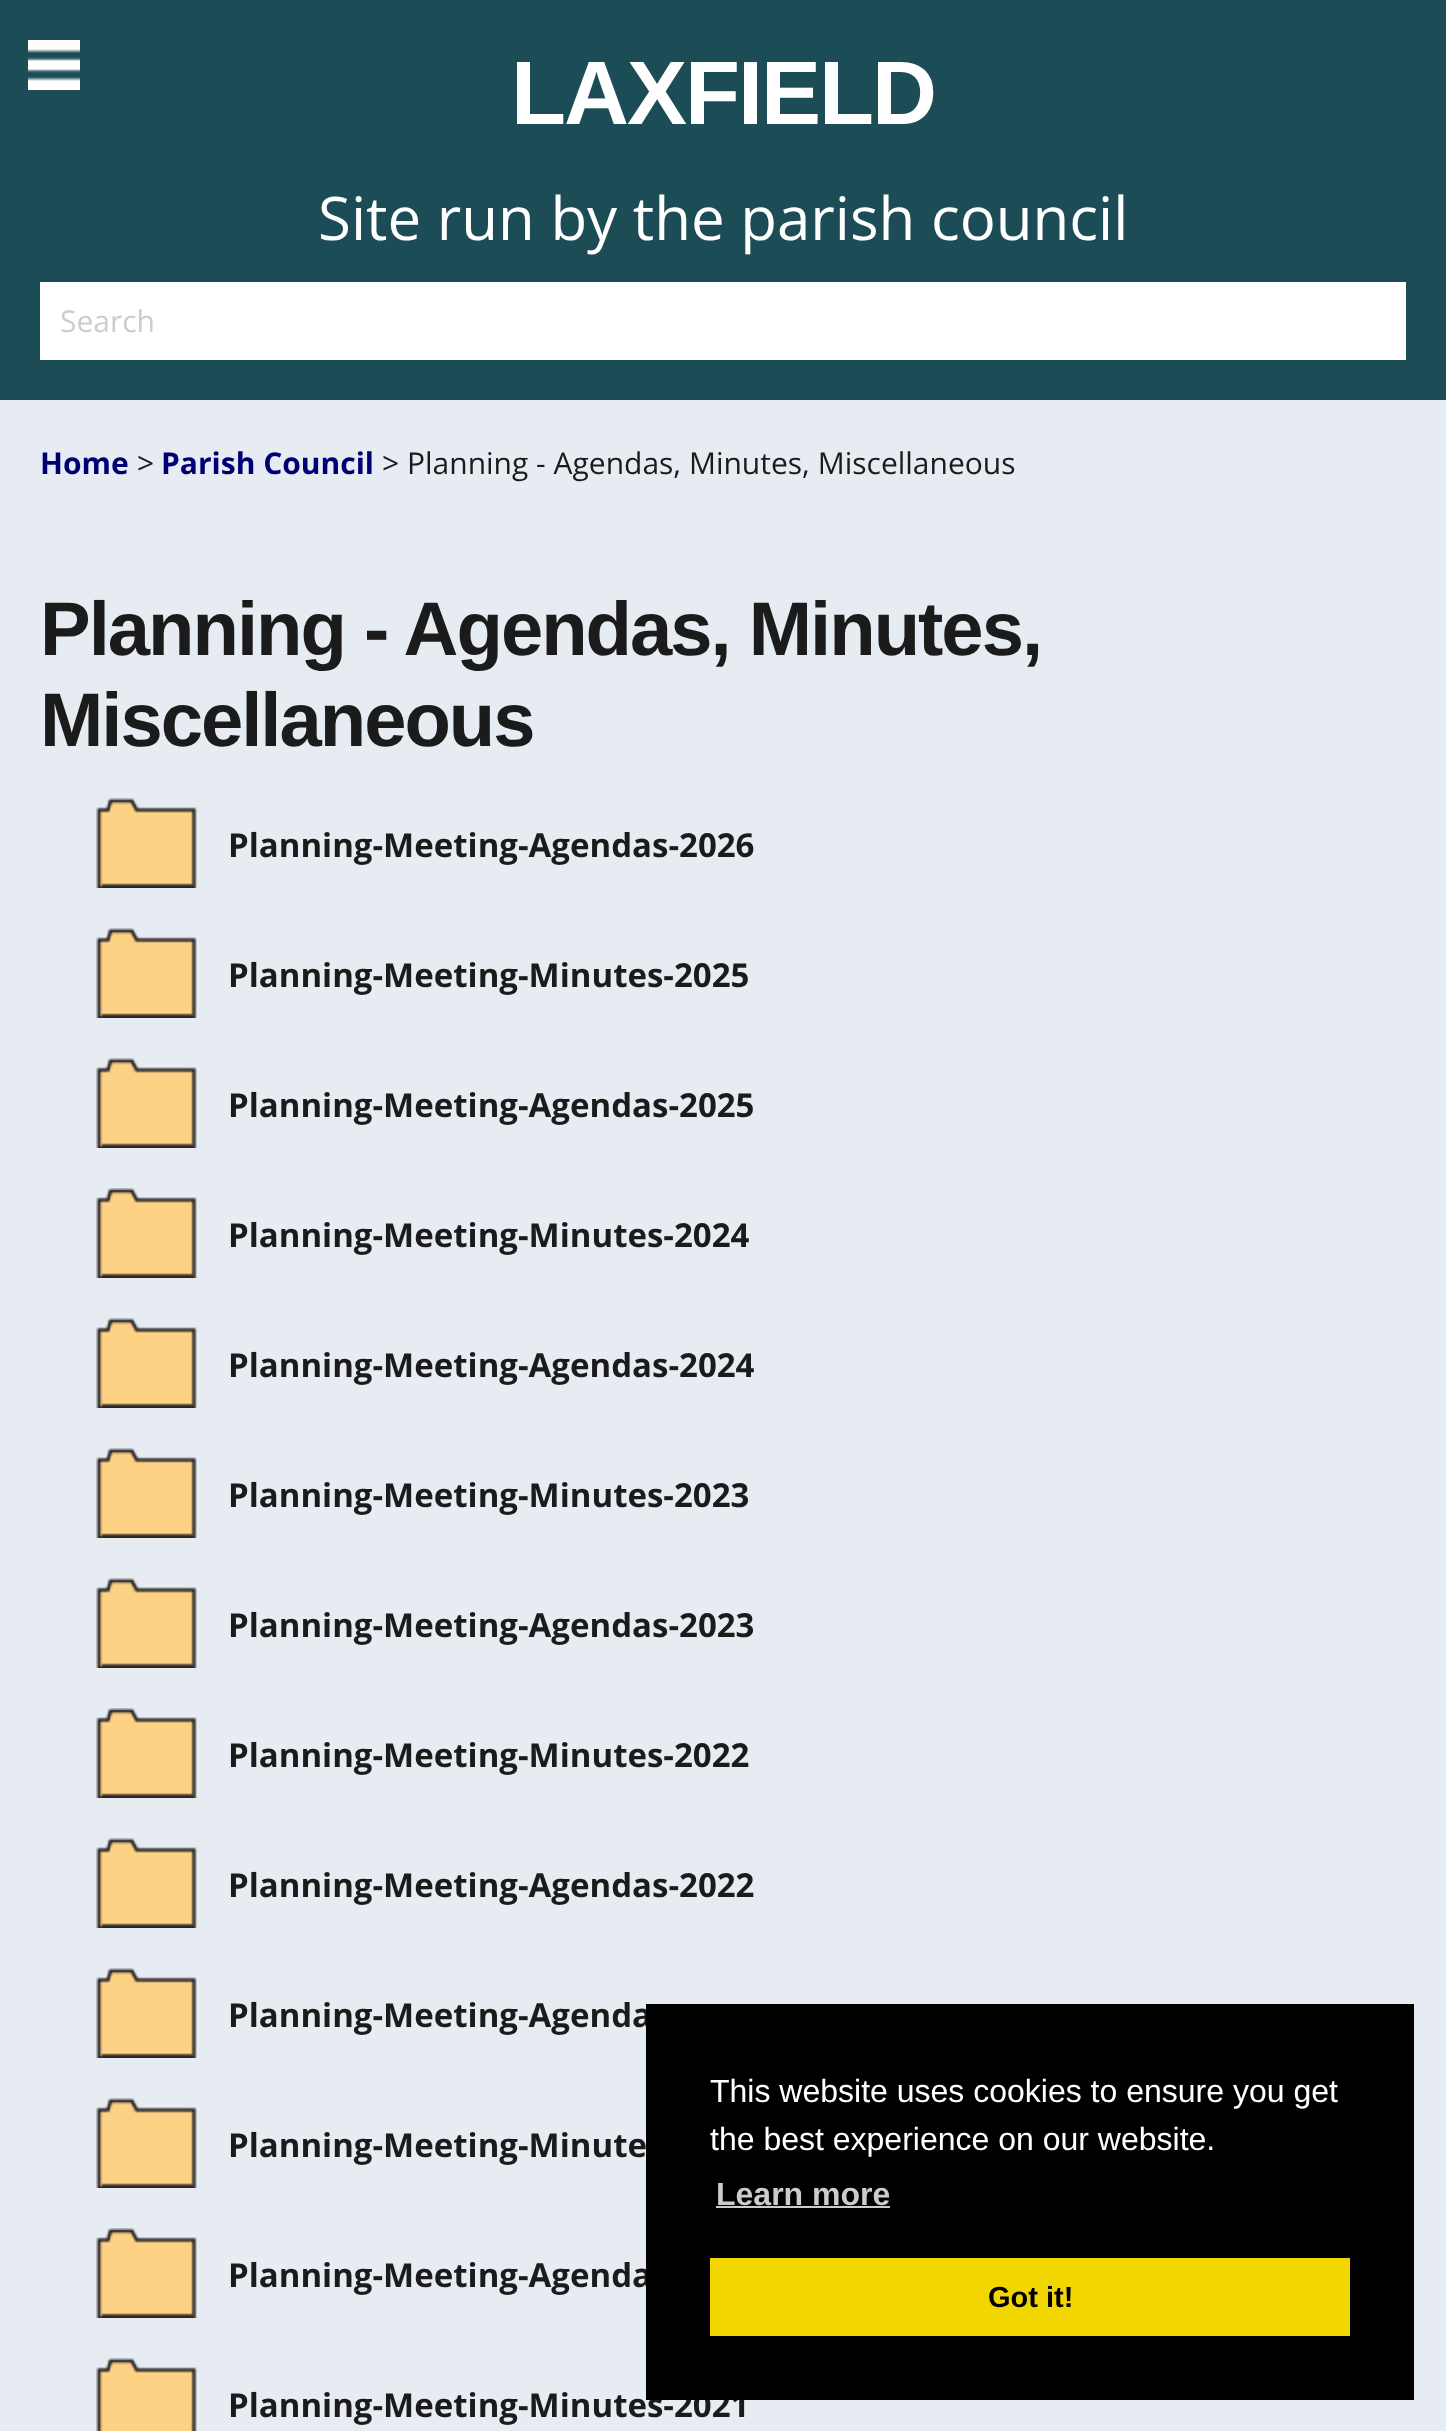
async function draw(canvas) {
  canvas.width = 1446;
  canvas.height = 2431;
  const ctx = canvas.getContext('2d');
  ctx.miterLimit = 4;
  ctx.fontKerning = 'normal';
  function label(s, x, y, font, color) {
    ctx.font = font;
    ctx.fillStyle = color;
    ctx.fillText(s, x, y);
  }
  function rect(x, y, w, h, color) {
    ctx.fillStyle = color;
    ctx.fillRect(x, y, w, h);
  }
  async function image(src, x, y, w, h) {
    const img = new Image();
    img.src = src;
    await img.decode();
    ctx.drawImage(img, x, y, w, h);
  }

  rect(0, 0, 1446, 2431, '#e6ecf2');
  rect(0, 0, 1446, 400, '#1c4c55');
  ctx.letterSpacing = '-2px';
  label('LAXFIELD', 511, 124, 'bold 90px Liberation Sans', '#fff');
  ctx.letterSpacing = '0px';
  label('Site run by the parish council', 318, 240, '60px Open Sans', '#fff');
  await image('assets/img1.png', 28, 40, 52, 50);
  rect(40, 282, 1366, 78, '#fff');
  label('Search', 60, 332, '30px Open Sans', '#ccc');
  label('Home', 40, 474, 'bold 30px Open Sans', '#000075');
  label('>', 137, 474, '30px Open Sans', '#1b1b1b');
  label('Parish Council', 161, 474, 'bold 30px Open Sans', '#000075');
  label('> Planning - Agendas, Minutes, Miscellaneous', 382, 474, '30px Open Sans', '#1b1b1b');
  ctx.letterSpacing = '-2px';
  label('Planning - Agendas, Minutes,', 40, 655, 'bold 76px Liberation Sans', '#1b1b1b');
  label('Miscellaneous', 40, 746, 'bold 76px Liberation Sans', '#1b1b1b');
  await image('assets/img2.png', 96, 798, 101, 90);
  ctx.letterSpacing = '0px';
  label('Planning-Meeting-Agendas-2026', 228, 857, 'bold 33px Open Sans', '#1b1b1b');
  await image('assets/img2.png', 96, 928, 101, 90);
  label('Planning-Meeting-Minutes-2025', 228, 987, 'bold 33px Open Sans', '#1b1b1b');
  await image('assets/img2.png', 96, 1058, 101, 90);
  label('Planning-Meeting-Agendas-2025', 228, 1117, 'bold 33px Open Sans', '#1b1b1b');
  await image('assets/img2.png', 96, 1188, 101, 90);
  label('Planning-Meeting-Minutes-2024', 228, 1247, 'bold 33px Open Sans', '#1b1b1b');
  await image('assets/img2.png', 96, 1318, 101, 90);
  label('Planning-Meeting-Agendas-2024', 228, 1377, 'bold 33px Open Sans', '#1b1b1b');
  await image('assets/img2.png', 96, 1448, 101, 90);
  label('Planning-Meeting-Minutes-2023', 228, 1507, 'bold 33px Open Sans', '#1b1b1b');
  await image('assets/img2.png', 96, 1578, 101, 90);
  label('Planning-Meeting-Agendas-2023', 228, 1637, 'bold 33px Open Sans', '#1b1b1b');
  await image('assets/img2.png', 96, 1708, 101, 90);
  label('Planning-Meeting-Minutes-2022', 228, 1767, 'bold 33px Open Sans', '#1b1b1b');
  await image('assets/img2.png', 96, 1838, 101, 90);
  label('Planning-Meeting-Agendas-2022', 228, 1897, 'bold 33px Open Sans', '#1b1b1b');
  await image('assets/img2.png', 96, 1968, 101, 90);
  label('Planning-Meeting-Agenda', 228, 2027, 'bold 33px Open Sans', '#1b1b1b');
  await image('assets/img2.png', 96, 2098, 101, 90);
  label('Planning-Meeting-Minute', 228, 2157, 'bold 33px Open Sans', '#1b1b1b');
  await image('assets/img2.png', 96, 2228, 101, 90);
  label('Planning-Meeting-Agenda', 228, 2287, 'bold 33px Open Sans', '#1b1b1b');
  await image('assets/img3.png', 96, 2358, 101, 73);
  label('Planning-Meeting-Minutes-2021', 228, 2417, 'bold 33px Open Sans', '#1b1b1b');
  rect(646, 2004, 768, 396, '#000');
  label('This website uses cookies to ensure you get', 710, 2102, '32px Liberation Sans', '#fff');
  label('the best experience on our website.', 710, 2150, '32px Liberation Sans', '#fff');
  label('Learn more', 716, 2205, 'bold 32px Liberation Sans', '#ccc');
  rect(716, 2206, 174, 2, '#ccc');
  rect(710, 2258, 640, 78, '#f1d600');
  label('Got it!', 988, 2307, 'bold 29px Liberation Sans', '#000');
}

draw(document.querySelector('canvas'));
